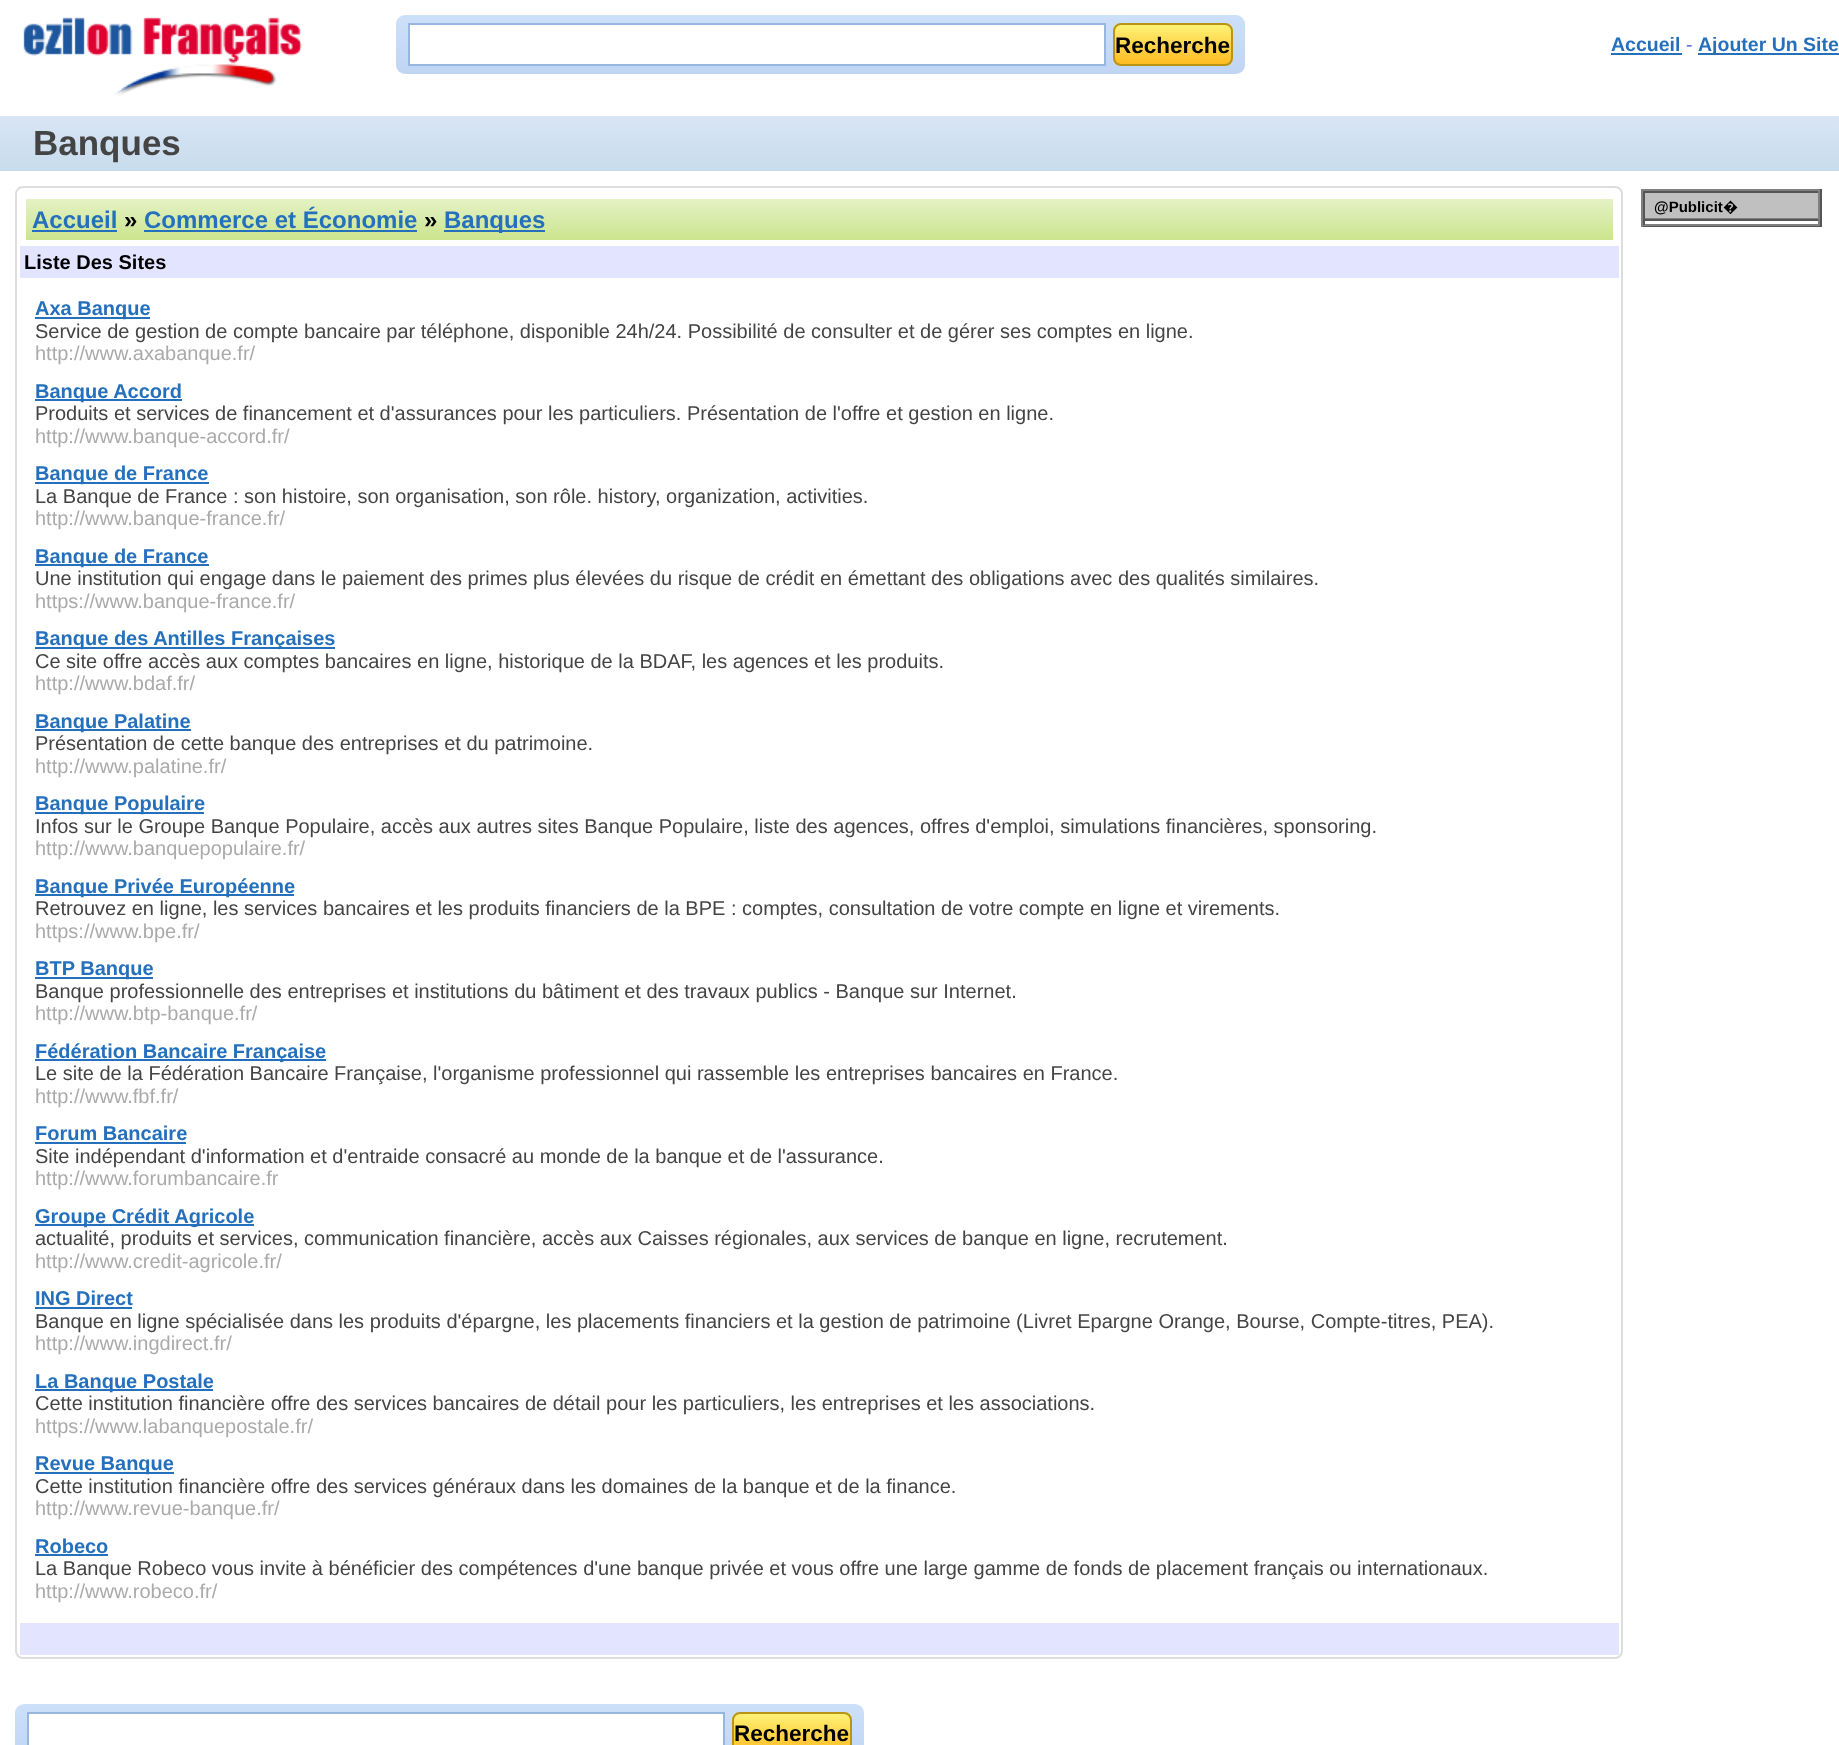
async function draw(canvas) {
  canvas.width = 1839;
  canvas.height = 1745;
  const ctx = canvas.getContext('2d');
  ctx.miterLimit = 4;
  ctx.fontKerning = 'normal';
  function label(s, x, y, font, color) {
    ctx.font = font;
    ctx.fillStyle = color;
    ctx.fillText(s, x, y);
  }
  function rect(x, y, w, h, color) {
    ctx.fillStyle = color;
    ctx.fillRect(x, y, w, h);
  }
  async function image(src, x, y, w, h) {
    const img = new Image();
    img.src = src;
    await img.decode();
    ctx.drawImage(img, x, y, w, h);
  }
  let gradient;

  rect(0, 0, 1839, 1745, '#fff');
  await image('assets/img1.png', 23, 17, 279, 79);
  gradient = ctx.createLinearGradient(821, 15, 821, 74);
  gradient.addColorStop(0, '#cde0f9');
  gradient.addColorStop(1, '#bfd5f3');
  ctx.fillStyle = gradient;
  ctx.beginPath();
  ctx.roundRect(396, 15, 849, 59, 9);
  ctx.fill();
  ctx.fillStyle = '#fff';
  ctx.beginPath();
  ctx.rect(409, 24, 696, 41);
  ctx.fill();
  ctx.strokeStyle = '#98b7e0';
  ctx.lineWidth = 2;
  ctx.stroke();
  ctx.save();
  ctx.beginPath();
  ctx.roundRect(1113, 23, 120, 43, 8);
  ctx.clip();
  gradient = ctx.createLinearGradient(1173, 24, 1173, 65);
  gradient.addColorStop(0, '#fef378');
  gradient.addColorStop(1, '#ffba20');
  ctx.fillStyle = gradient;
  ctx.fillRect(1113, 24, 120, 41);
  ctx.restore();
  ctx.beginPath();
  ctx.roundRect(1114, 24, 118, 41, 7);
  ctx.strokeStyle = '#ba9515';
  ctx.stroke();
  label('Recherche', 1115, 53, 'bold 22.5px Liberation Sans', '#000');
  label('Accueil', 1611, 51, 'bold 19.5px Liberation Sans', '#2470bd');
  rect(1611, 53, 71, 2, '#2470bd');
  label('-', 1686, 51, '19.5px Liberation Sans', '#5868d0');
  rect(1698, 53, 141, 2, '#2470bd');
  label('Ajouter Un Site', 1698, 51, 'bold 19.5px Liberation Sans', '#2470bd');
  gradient = ctx.createLinearGradient(920, 115, 920, 171);
  gradient.addColorStop(0, '#d9e5f4');
  gradient.addColorStop(1, '#c7dced');
  ctx.fillStyle = gradient;
  ctx.fillRect(0, 116, 1839, 55);
  label('Banques', 33, 155, 'bold 35px Liberation Sans', '#444');
  ctx.beginPath();
  ctx.roundRect(16, 187, 1606, 1471, 7);
  ctx.strokeStyle = '#ddd';
  ctx.stroke();
  gradient = ctx.createLinearGradient(819, 198, 819, 240);
  gradient.addColorStop(0, '#e5f2c6');
  gradient.addColorStop(1, '#cbe58e');
  ctx.fillStyle = gradient;
  ctx.fillRect(26, 199, 1587, 41);
  label('Accueil', 32, 228, 'bold 24px Liberation Sans', '#2470bd');
  rect(32, 230, 85, 2, '#2470bd');
  label('»', 124, 228, 'bold 24px Liberation Sans', '#000');
  label('Commerce et Économie', 144, 228, 'bold 24px Liberation Sans', '#2470bd');
  rect(144, 230, 273, 2, '#2470bd');
  label('»', 424, 228, 'bold 24px Liberation Sans', '#000');
  rect(444, 230, 101, 2, '#2470bd');
  label('Banques', 444, 228, 'bold 24px Liberation Sans', '#2470bd');
  rect(20, 246, 1599, 32, '#e3e4ff');
  label('Liste Des Sites', 24, 269, 'bold 20px Liberation Sans', '#000');
  rect(35, 317, 115, 2, '#2470bd');
  label('Axa Banque', 35, 315, 'bold 20px Liberation Sans', '#2470bd');
  label('Service de gestion de compte bancaire par téléphone, disponible 24h/24. Possibilité de consulter et de gérer ses comptes en ligne.', 35, 338, '20px Liberation Sans', '#444');
  label('http://www.axabanque.fr/', 35, 360, '20px Liberation Sans', '#aaa');
  rect(35, 399, 147, 2, '#2470bd');
  label('Banque Accord', 35, 398, 'bold 20px Liberation Sans', '#2470bd');
  label('Produits et services de financement et d\'assurances pour les particuliers. Présentation de l\'offre et gestion en ligne.', 35, 420, '20px Liberation Sans', '#444');
  label('http://www.banque-accord.fr/', 35, 443, '20px Liberation Sans', '#aaa');
  rect(35, 482, 174, 2, '#2470bd');
  label('Banque de France', 35, 480, 'bold 20px Liberation Sans', '#2470bd');
  label('La Banque de France : son histoire, son organisation, son rôle. history, organization, activities.', 35, 503, '20px Liberation Sans', '#444');
  label('http://www.banque-france.fr/', 35, 525, '20px Liberation Sans', '#aaa');
  rect(35, 564, 174, 2, '#2470bd');
  label('Banque de France', 35, 563, 'bold 20px Liberation Sans', '#2470bd');
  label('Une institution qui engage dans le paiement des primes plus élevées du risque de crédit en émettant des obligations avec des qualités similaires.', 35, 585, '20px Liberation Sans', '#444');
  label('https://www.banque-france.fr/', 35, 608, '20px Liberation Sans', '#aaa');
  rect(35, 647, 300, 2, '#2470bd');
  label('Banque des Antilles Françaises', 35, 645, 'bold 20px Liberation Sans', '#2470bd');
  label('Ce site offre accès aux comptes bancaires en ligne, historique de la BDAF, les agences et les produits.', 35, 668, '20px Liberation Sans', '#444');
  label('http://www.bdaf.fr/', 35, 690, '20px Liberation Sans', '#aaa');
  rect(35, 729, 156, 2, '#2470bd');
  label('Banque Palatine', 35, 728, 'bold 20px Liberation Sans', '#2470bd');
  label('Présentation de cette banque des entreprises et du patrimoine.', 35, 750, '20px Liberation Sans', '#444');
  label('http://www.palatine.fr/', 35, 773, '20px Liberation Sans', '#aaa');
  rect(35, 812, 169, 2, '#2470bd');
  label('Banque Populaire', 35, 810, 'bold 20px Liberation Sans', '#2470bd');
  label('Infos sur le Groupe Banque Populaire, accès aux autres sites Banque Populaire, liste des agences, offres d\'emploi, simulations financières, sponsoring.', 35, 833, '20px Liberation Sans', '#444');
  label('http://www.banquepopulaire.fr/', 35, 855, '20px Liberation Sans', '#aaa');
  rect(35, 894, 259, 2, '#2470bd');
  label('Banque Privée Européenne', 35, 893, 'bold 20px Liberation Sans', '#2470bd');
  label('Retrouvez en ligne, les services bancaires et les produits financiers de la BPE : comptes, consultation de votre compte en ligne et virements.', 35, 915, '20px Liberation Sans', '#444');
  label('https://www.bpe.fr/', 35, 938, '20px Liberation Sans', '#aaa');
  rect(35, 977, 118, 2, '#2470bd');
  label('BTP Banque', 35, 975, 'bold 20px Liberation Sans', '#2470bd');
  label('Banque professionnelle des entreprises et institutions du bâtiment et des travaux publics - Banque sur Internet.', 35, 998, '20px Liberation Sans', '#444');
  label('http://www.btp-banque.fr/', 35, 1020, '20px Liberation Sans', '#aaa');
  rect(35, 1059, 291, 2, '#2470bd');
  label('Fédération Bancaire Française', 35, 1058, 'bold 20px Liberation Sans', '#2470bd');
  label('Le site de la Fédération Bancaire Française, l\'organisme professionnel qui rassemble les entreprises bancaires en France.', 35, 1080, '20px Liberation Sans', '#444');
  label('http://www.fbf.fr/', 35, 1103, '20px Liberation Sans', '#aaa');
  label('Forum Bancaire', 35, 1140, 'bold 20px Liberation Sans', '#2470bd');
  rect(35, 1142, 151, 2, '#2470bd');
  label('Site indépendant d\'information et d\'entraide consacré au monde de la banque et de l\'assurance.', 35, 1163, '20px Liberation Sans', '#444');
  label('http://www.forumbancaire.fr', 35, 1185, '20px Liberation Sans', '#aaa');
  rect(35, 1224, 219, 2, '#2470bd');
  label('Groupe Crédit Agricole', 35, 1223, 'bold 20px Liberation Sans', '#2470bd');
  label('actualité, produits et services, communication financière, accès aux Caisses régionales, aux services de banque en ligne, recrutement.', 35, 1245, '20px Liberation Sans', '#444');
  label('http://www.credit-agricole.fr/', 35, 1268, '20px Liberation Sans', '#aaa');
  label('ING Direct', 35, 1305, 'bold 20px Liberation Sans', '#2470bd');
  rect(35, 1307, 97, 2, '#2470bd');
  label('Banque en ligne spécialisée dans les produits d\'épargne, les placements financiers et la gestion de patrimoine (Livret Epargne Orange, Bourse, Compte-titres, PEA).', 35, 1328, '20px Liberation Sans', '#444');
  label('http://www.ingdirect.fr/', 35, 1350, '20px Liberation Sans', '#aaa');
  rect(35, 1389, 178, 2, '#2470bd');
  label('La Banque Postale', 35, 1388, 'bold 20px Liberation Sans', '#2470bd');
  label('Cette institution financière offre des services bancaires de détail pour les particuliers, les entreprises et les associations.', 35, 1410, '20px Liberation Sans', '#444');
  label('https://www.labanquepostale.fr/', 35, 1433, '20px Liberation Sans', '#aaa');
  rect(35, 1472, 139, 2, '#2470bd');
  label('Revue Banque', 35, 1470, 'bold 20px Liberation Sans', '#2470bd');
  label('Cette institution financière offre des services généraux dans les domaines de la banque et de la finance.', 35, 1493, '20px Liberation Sans', '#444');
  label('http://www.revue-banque.fr/', 35, 1515, '20px Liberation Sans', '#aaa');
  label('Robeco', 35, 1553, 'bold 20px Liberation Sans', '#2470bd');
  rect(35, 1554, 73, 2, '#2470bd');
  label('La Banque Robeco vous invite à bénéficier des compétences d\'une banque privée et vous offre une large gamme de fonds de placement français ou internationaux.', 35, 1575, '20px Liberation Sans', '#444');
  label('http://www.robeco.fr/', 35, 1598, '20px Liberation Sans', '#aaa');
  rect(20, 1623, 1599, 32, '#e3e4ff');
  rect(1641, 189, 180, 2, '#808080');
  rect(1820, 189, 2, 38, '#555');
  rect(1641, 225, 180, 2, '#555');
  rect(1641, 189, 2, 38, '#808080');
  rect(1645, 193, 173, 25, '#c0c0c0');
  rect(1643, 191, 177, 2, '#555');
  rect(1818, 191, 2, 28, '#808080');
  rect(1643, 218, 177, 1, '#808080');
  rect(1643, 191, 2, 28, '#555');
  label('@Publicit', 1654, 212, 'bold 15px Liberation Sans', '#000');
  label('�', 1723, 212, 'bold 15px Noto Sans', '#000');
  rect(1643, 219, 177, 2, '#555');
  rect(1818, 219, 2, 6, '#808080');
  rect(1643, 224, 177, 2, '#808080');
  rect(1643, 219, 2, 6, '#555');
  gradient = ctx.createLinearGradient(440, 1704, 440, 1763);
  gradient.addColorStop(0, '#cde0f9');
  gradient.addColorStop(1, '#bfd5f3');
  ctx.fillStyle = gradient;
  ctx.beginPath();
  ctx.roundRect(15, 1704, 849, 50, 9);
  ctx.fill();
  ctx.fillStyle = '#fff';
  ctx.beginPath();
  ctx.rect(28, 1713, 696, 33);
  ctx.fill();
  ctx.strokeStyle = '#98b7e0';
  ctx.stroke();
  ctx.save();
  ctx.beginPath();
  ctx.roundRect(732, 1712, 120, 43, 8);
  ctx.clip();
  gradient = ctx.createLinearGradient(792, 1713, 792, 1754);
  gradient.addColorStop(0, '#fef378');
  gradient.addColorStop(1, '#ffba20');
  ctx.fillStyle = gradient;
  ctx.fillRect(732, 1713, 120, 32);
  ctx.restore();
  ctx.beginPath();
  ctx.roundRect(733, 1713, 118, 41, 7);
  ctx.strokeStyle = '#ba9515';
  ctx.stroke();
  label('Recherche', 734, 1741, 'bold 22.5px Liberation Sans', '#000');
}

draw(document.querySelector('canvas'));
